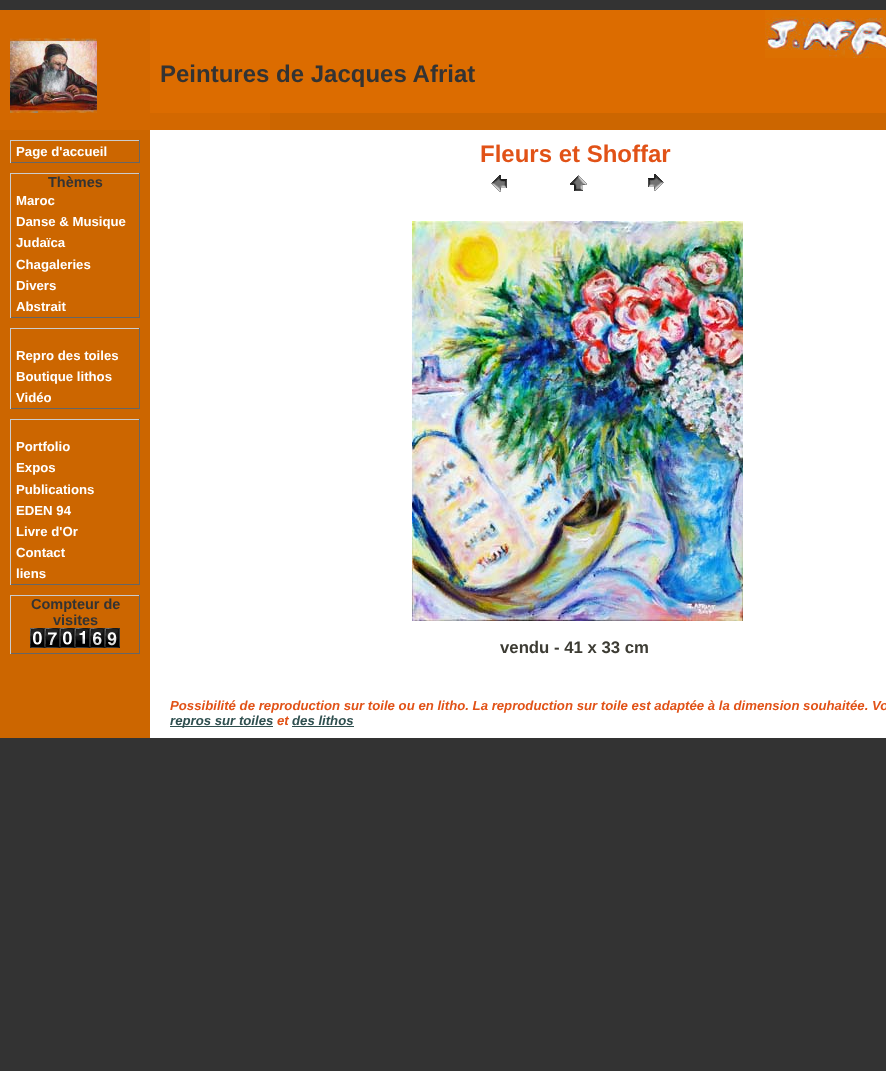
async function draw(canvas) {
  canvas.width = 886;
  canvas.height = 1071;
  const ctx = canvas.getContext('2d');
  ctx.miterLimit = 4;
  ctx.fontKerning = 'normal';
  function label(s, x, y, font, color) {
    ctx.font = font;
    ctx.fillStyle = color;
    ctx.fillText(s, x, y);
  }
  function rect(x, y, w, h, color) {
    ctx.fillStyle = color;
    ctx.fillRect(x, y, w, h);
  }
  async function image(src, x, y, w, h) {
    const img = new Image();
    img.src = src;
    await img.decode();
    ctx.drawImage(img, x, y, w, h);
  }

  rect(0, 0, 886, 1071, '#333');
  rect(0, 113, 886, 625, '#c60');
  rect(0, 10, 270, 120, '#d36800');
  await image('assets/img1.png', 10, 38, 87, 75);
  rect(150, 10, 736, 103, '#dc6c00');
  await image('assets/img2.png', 765, 10, 121, 48);
  label('Peintures de Jacques Afriat', 160, 82, 'bold 24px Liberation Sans', '#333');
  rect(10, 140, 130, 1, '#ccc');
  rect(139, 140, 1, 23, '#666');
  rect(10, 162, 130, 1, '#666');
  rect(10, 141, 1, 22, '#ccc');
  label('Page d\'accueil', 16, 156, 'bold 13.2px Liberation Sans', '#fff');
  rect(10, 173, 130, 1, '#ccc');
  rect(139, 173, 1, 145, '#666');
  rect(10, 173, 1, 17, '#ccc');
  label('Thèmes', 48, 187, 'bold 14.5px Liberation Sans', '#333');
  rect(10, 317, 130, 1, '#666');
  rect(10, 190, 1, 128, '#ccc');
  label('Maroc', 16, 205, 'bold 13.2px Liberation Sans', '#fff');
  label('Danse & Musique', 16, 226, 'bold 13.2px Liberation Sans', '#fff');
  label('Judaïca', 16, 247, 'bold 13.2px Liberation Sans', '#fff');
  label('Chagaleries', 16, 269, 'bold 13.2px Liberation Sans', '#fff');
  label('Divers', 16, 290, 'bold 13.2px Liberation Sans', '#fff');
  label('Abstrait', 16, 311, 'bold 13.2px Liberation Sans', '#fff');
  rect(10, 328, 130, 1, '#ccc');
  rect(139, 328, 1, 81, '#666');
  rect(10, 328, 1, 17, '#ccc');
  rect(10, 408, 130, 1, '#666');
  rect(10, 345, 1, 64, '#ccc');
  label('Repro des toiles', 16, 360, 'bold 13.2px Liberation Sans', '#fff');
  label('Boutique lithos', 16, 381, 'bold 13.2px Liberation Sans', '#fff');
  label('Vidéo', 16, 402, 'bold 13.2px Liberation Sans', '#fff');
  rect(10, 419, 130, 1, '#ccc');
  rect(139, 419, 1, 166, '#666');
  rect(10, 419, 1, 17, '#ccc');
  rect(10, 584, 130, 1, '#666');
  rect(10, 436, 1, 149, '#ccc');
  label('Portfolio', 16, 451, 'bold 13.2px Liberation Sans', '#fff');
  label('Expos', 16, 472, 'bold 13.2px Liberation Sans', '#fff');
  label('Publications', 16, 494, 'bold 13.2px Liberation Sans', '#fff');
  label('EDEN 94', 16, 515, 'bold 13.2px Liberation Sans', '#fff');
  label('Livre d\'Or', 16, 536, 'bold 13.2px Liberation Sans', '#fff');
  label('Contact', 16, 557, 'bold 13.2px Liberation Sans', '#fff');
  label('liens', 16, 578, 'bold 13.2px Liberation Sans', '#fff');
  rect(10, 595, 130, 1, '#ccc');
  rect(139, 595, 1, 59, '#666');
  rect(10, 595, 1, 33, '#ccc');
  label('Compteur de', 31, 609, 'bold 14.5px Liberation Sans', '#333');
  label('visites', 53, 625, 'bold 14.5px Liberation Sans', '#333');
  rect(10, 653, 130, 1, '#666');
  rect(10, 628, 1, 26, '#ccc');
  await image('assets/img3.png', 30, 628, 90, 20);
  rect(150, 130, 736, 608, '#fff');
  label('Fleurs et Shoffar', 480, 162, 'bold 24px Liberation Sans', '#e15217');
  await image('assets/img4.png', 491, 175, 16, 17);
  await image('assets/img5.png', 570, 175, 17, 16);
  await image('assets/img6.png', 648, 174, 16, 17);
  await image('assets/img7.png', 412, 221, 331, 400);
  label('vendu - 41 x 33 cm', 500, 653, 'bold 16.75px Liberation Sans', '#3d3c34');
  label('Possibilité de reproduction sur toile ou en litho. La reproduction sur toile est adaptée à la dimension souhaitée. Vo', 170, 710, 'italic bold 13.2px Liberation Sans', '#e15217');
  rect(170, 726, 103, 1, '#2f4f4f');
  label('repros sur toiles', 170, 725, 'italic bold 13.2px Liberation Sans', '#2f4f4f');
  label('et', 277, 725, 'italic bold 13.2px Liberation Sans', '#e15217');
  label('des lithos', 292, 725, 'italic bold 13.2px Liberation Sans', '#2f4f4f');
  rect(292, 726, 62, 1, '#2f4f4f');
}

draw(document.querySelector('canvas'));
